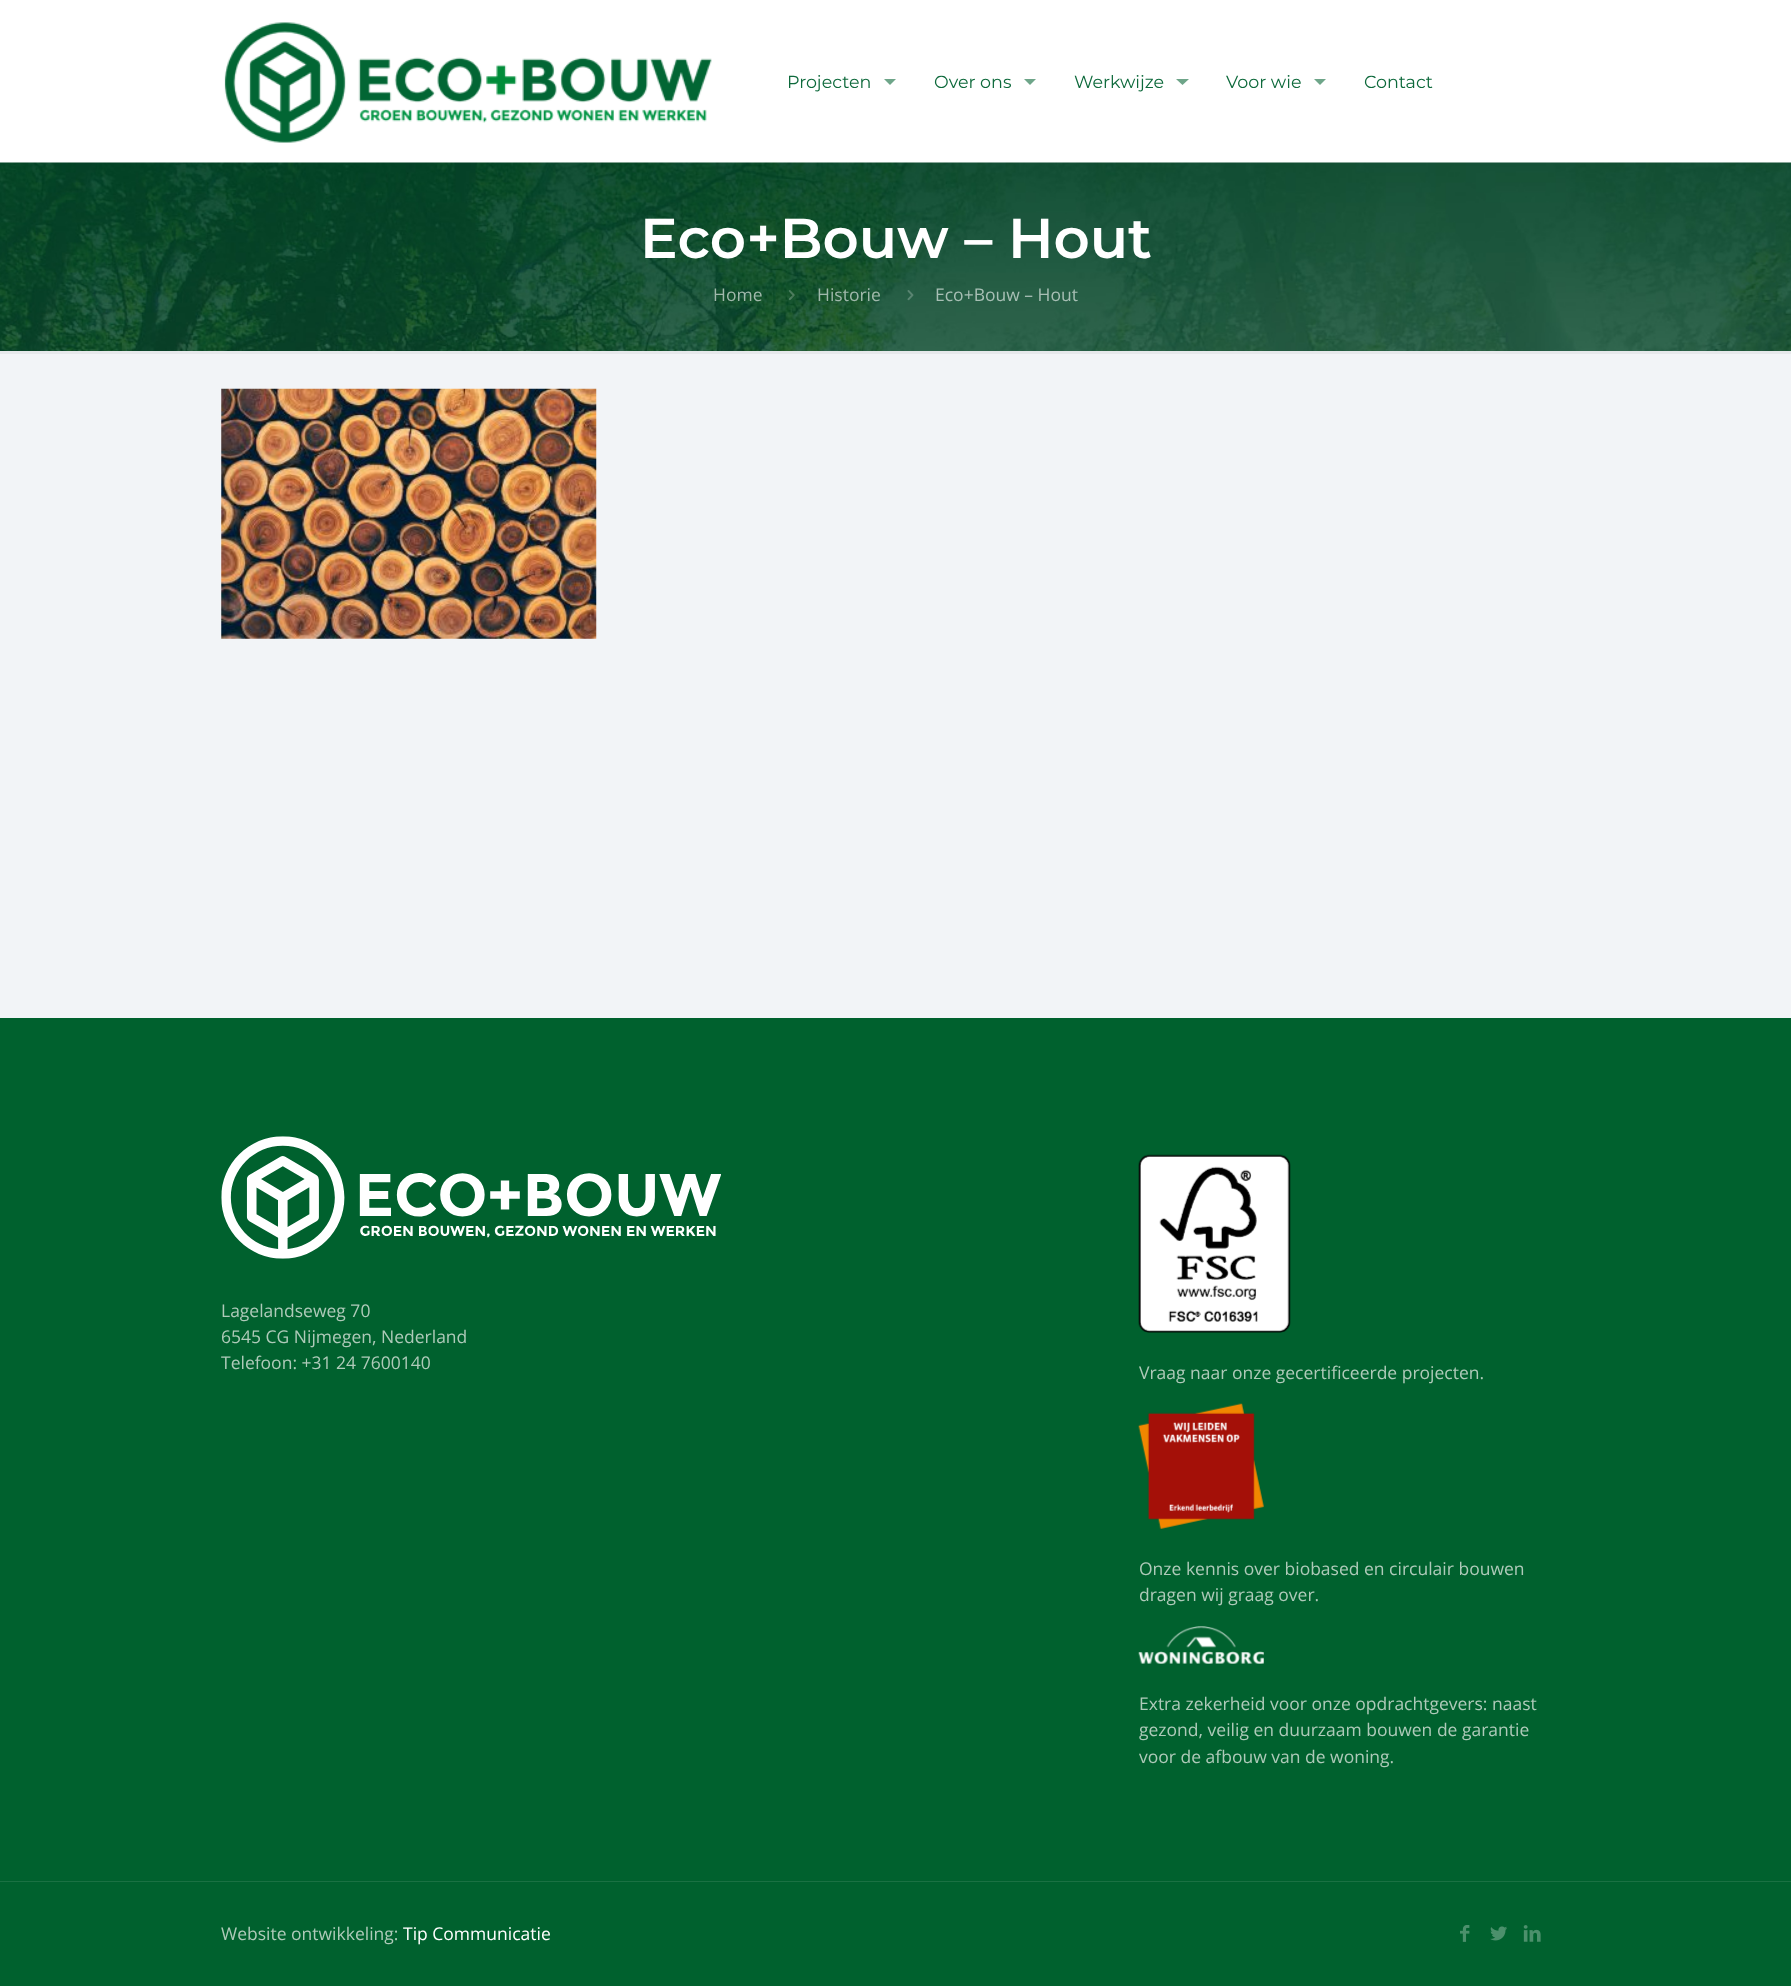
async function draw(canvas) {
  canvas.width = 1791;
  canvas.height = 1986;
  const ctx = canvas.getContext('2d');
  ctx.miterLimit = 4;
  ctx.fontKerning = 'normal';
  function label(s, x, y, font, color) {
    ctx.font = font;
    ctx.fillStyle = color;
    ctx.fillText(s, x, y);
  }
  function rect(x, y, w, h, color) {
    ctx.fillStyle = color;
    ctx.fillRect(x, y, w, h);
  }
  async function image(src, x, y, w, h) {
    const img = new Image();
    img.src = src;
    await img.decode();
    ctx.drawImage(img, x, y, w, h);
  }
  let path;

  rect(0, 0, 1791, 1986, '#f2f4f7');
  rect(0, 0, 1791, 163, '#fff');
  await image('assets/img1.png', 224, 22, 488, 121);
  label('Projecten', 787, 88, '17.5px Montserrat', '#0d693b');
  ctx.fillStyle = '#6ea589';
  path = new Path2D('M884 79H896L890 85Z');
  ctx.fill(path);
  label('Over ons', 934, 88, '17.5px Montserrat', '#0d693b');
  ctx.fillStyle = '#6ea589';
  path = new Path2D('M1024 79H1036L1030 85Z');
  ctx.fill(path);
  label('Werkwijze', 1074, 88, '17.5px Montserrat', '#0d693b');
  ctx.fillStyle = '#6ea589';
  path = new Path2D('M1176 79H1189L1182.5 85Z');
  ctx.fill(path);
  label('Voor wie', 1226, 88, '17.5px Montserrat', '#0d693b');
  ctx.fillStyle = '#6ea589';
  path = new Path2D('M1314 79H1326L1320 85Z');
  ctx.fill(path);
  label('Contact', 1364, 88, '17.5px Montserrat', '#0d693b');
  await image('assets/img2.png', 0, 162, 1791, 189);
  label('Eco+Bouw – Hout', 640, 258, '600 56.25px Montserrat', '#fff');
  label('Home', 713, 301, '17.5px Open Sans', '#a0b8ab');
  await image('assets/img3.png', 788, 290, 7, 11);
  label('Historie', 817, 301, '17.5px Open Sans', '#a0b8ab');
  await image('assets/img4.png', 907, 290, 7, 11);
  label('Eco+Bouw – Hout', 935, 301, '17.5px Open Sans', '#a8bfb5');
  rect(0, 351, 1791, 3, '#e6e8eb');
  await image('assets/img5.png', 221, 388, 376, 251);
  rect(0, 1018, 1791, 968, '#00612e');
  await image('assets/img6.png', 221, 1136, 500, 123);
  label('Lagelandseweg 70', 221, 1317, '17.5px Open Sans', '#aecab9');
  label('6545 CG Nijmegen, Nederland', 221, 1343, '17.5px Open Sans', '#aecab9');
  label('Telefoon: +31 24 7600140', 221, 1369, '17.5px Open Sans', '#aecab9');
  await image('assets/img7.png', 1138, 1154, 153, 179);
  label('Vraag naar onze gecertificeerde projecten.', 1139, 1379, '17.5px Open Sans', '#aecab9');
  await image('assets/img8.png', 1138, 1403, 126, 126);
  label('Onze kennis over biobased en circulair bouwen', 1139, 1575, '17.5px Open Sans', '#aecab9');
  label('dragen wij graag over.', 1139, 1601, '17.5px Open Sans', '#aecab9');
  await image('assets/img9.png', 1138, 1626, 126, 38);
  label('Extra zekerheid voor onze opdrachtgevers: naast', 1139, 1710, '17.5px Open Sans', '#aecab9');
  label('gezond, veilig en duurzaam bouwen de garantie', 1139, 1736, '17.5px Open Sans', '#aecab9');
  label('voor de afbouw van de woning.', 1139, 1763, '17.5px Open Sans', '#aecab9');
  rect(0, 1881, 1791, 1, '#1a7143');
  label('Website ontwikkeling:', 221, 1940, '17.5px Open Sans', '#aecab9');
  label('Tip Communicatie', 403, 1940, '17.5px Open Sans', '#fff');
  await image('assets/img10.png', 1460, 1925, 10, 17);
  await image('assets/img11.png', 1490, 1926, 17, 15);
  await image('assets/img12.png', 1523, 1925, 18, 17);
}

draw(document.querySelector('canvas'));
